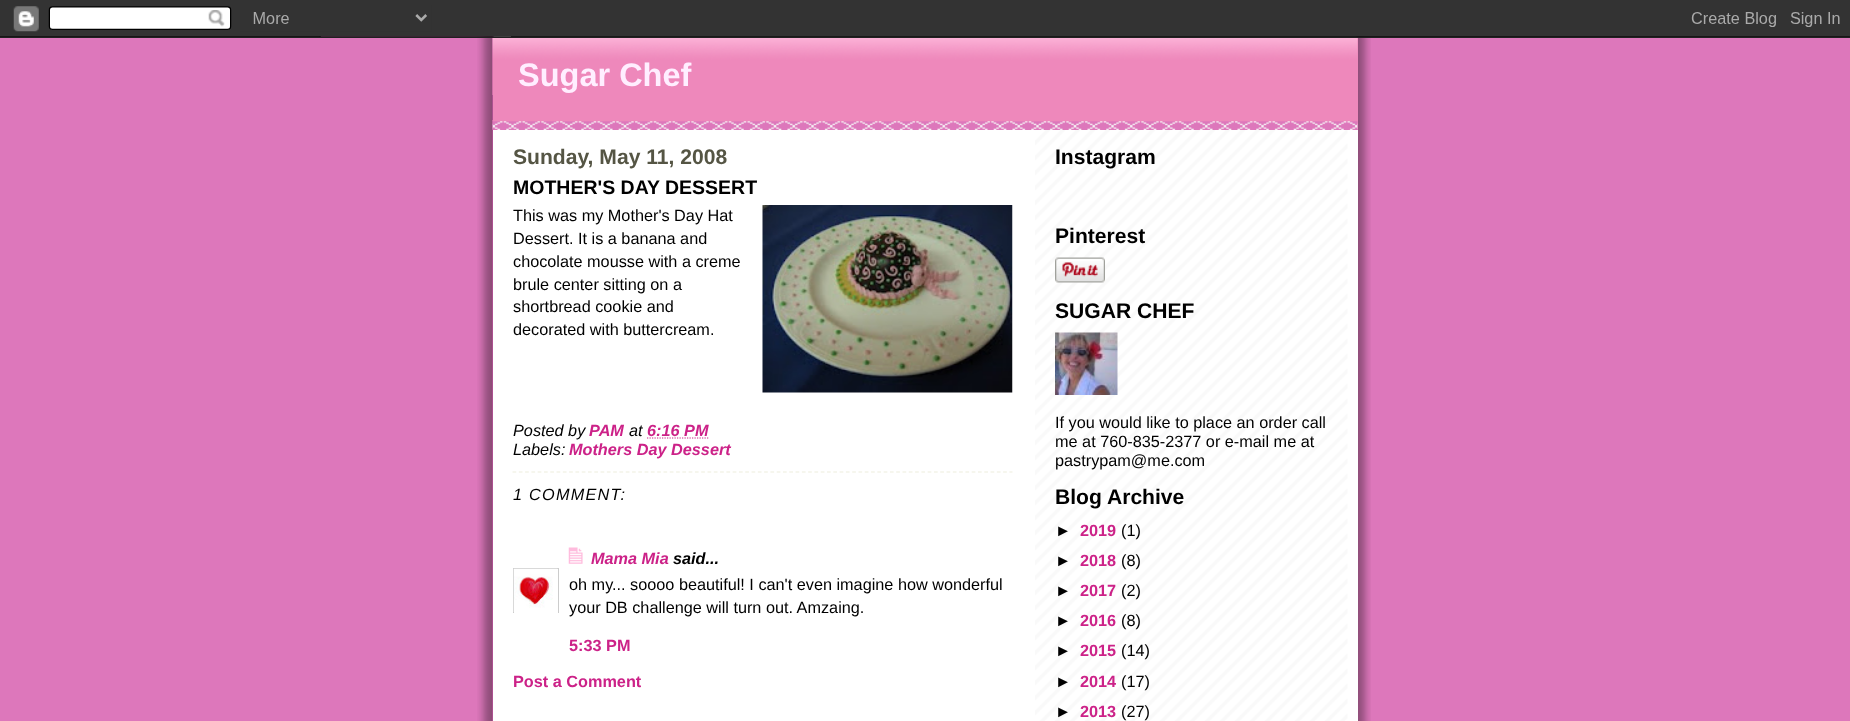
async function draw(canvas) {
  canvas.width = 1850;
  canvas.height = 721;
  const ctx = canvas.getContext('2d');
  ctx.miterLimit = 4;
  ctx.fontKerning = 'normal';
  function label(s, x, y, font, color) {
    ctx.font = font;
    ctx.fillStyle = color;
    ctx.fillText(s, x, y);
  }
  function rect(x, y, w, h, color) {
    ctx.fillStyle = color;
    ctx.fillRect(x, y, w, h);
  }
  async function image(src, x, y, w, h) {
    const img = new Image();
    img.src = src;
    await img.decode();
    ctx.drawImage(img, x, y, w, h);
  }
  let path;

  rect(0, 0, 1850, 721, '#d7b');
  await image('assets/img1.png', 477, 36, 894, 685);
  await image('assets/img2.png', 0, 0, 1850, 38);
  rect(493, 130, 865, 591, '#fff');
  await image('assets/img3.png', 1035, 130, 323, 591);
  rect(493, 38, 865, 92, '#e8b');
  await image('assets/img4.png', 492, 120, 866, 10);
  await image('assets/img5.png', 492, 38, 866, 57);
  label('Sugar Chef', 518, 86, 'bold 32.5px Liberation Sans', '#fef');
  label('Sunday, May 11, 2008', 513, 164, 'bold 21.1px Liberation Sans', '#554');
  label('MOTHER\'S DAY DESSERT', 513, 194, 'bold 19.5px Liberation Sans', '#000');
  label('This was my Mother\'s Day Hat', 513, 221, '16.25px Liberation Sans', '#000');
  await image('assets/img6.png', 762, 205, 251, 188);
  label('Dessert. It is a banana and', 513, 244, '16.25px Liberation Sans', '#000');
  label('chocolate mousse with a creme', 513, 267, '16.25px Liberation Sans', '#000');
  label('brule center sitting on a', 513, 290, '16.25px Liberation Sans', '#000');
  label('shortbread cookie and', 513, 312, '16.25px Liberation Sans', '#000');
  label('decorated with buttercream.', 513, 335, '16.25px Liberation Sans', '#000');
  label('Posted by', 513, 436, 'italic 16.25px Liberation Sans', '#000');
  label('PAM', 589, 436, 'italic bold 16.25px Liberation Sans', '#c28');
  label('at', 629, 436, 'italic 16.25px Liberation Sans', '#000');
  label('6:16 PM', 647, 436, 'italic bold 16.25px Liberation Sans', '#c28');
  path = new Path2D('M647 438H708.5');
  ctx.strokeStyle = '#c28';
  ctx.lineWidth = 1.2;
  ctx.setLineDash([1.25, 1.25]);
  ctx.stroke(path);
  label('Labels:', 513, 455, 'italic 16.25px Liberation Sans', '#000');
  label('Mothers Day Dessert', 569, 455, 'italic bold 16.25px Liberation Sans', '#c28');
  path = new Path2D('M512.5 472H1012.5');
  ctx.strokeStyle = '#eed';
  ctx.setLineDash([3.75, 2.54]);
  ctx.stroke(path);
  ctx.letterSpacing = '1.25px';
  label('1 COMMENT:', 513, 500, 'italic 16.25px Liberation Sans', '#000');
  await image('assets/img7.png', 568, 547, 15, 17);
  ctx.letterSpacing = '0px';
  label('Mama Mia', 591, 564, 'italic bold 16.25px Liberation Sans', '#c28');
  label('said...', 673, 564, 'italic bold 16.25px Liberation Sans', '#000');
  ctx.save();
  ctx.beginPath();
  ctx.rect(513, 568, 46, 45);
  ctx.clip();
  ctx.strokeStyle = '#ccc';
  ctx.lineWidth = 1;
  ctx.setLineDash([]);
  ctx.strokeRect(513.5, 568.5, 45, 45);
  ctx.restore();
  await image('assets/img8.png', 513, 568, 45, 44);
  label('oh my... soooo beautiful! I can\'t even imagine how wonderful', 569, 590, '16.25px Liberation Sans', '#000');
  label('your DB challenge will turn out. Amzaing.', 569, 613, '16.25px Liberation Sans', '#000');
  label('5:33 PM', 569, 651, 'bold 16.25px Liberation Sans', '#c28');
  label('Post a Comment', 513, 687, 'bold 16.25px Liberation Sans', '#c28');
  label('Instagram', 1055, 164, 'bold 21.1px Liberation Sans', '#000');
  label('Pinterest', 1055, 243, 'bold 21.1px Liberation Sans', '#000');
  await image('assets/img9.png', 1055, 257, 50, 26);
  label('SUGAR CHEF', 1055, 318, 'bold 21.1px Liberation Sans', '#000');
  await image('assets/img10.png', 1055, 332, 63, 63);
  label('If you would like to place an order call', 1055, 428, '16.25px Liberation Sans', '#000');
  label('me at 760-835-2377 or e-mail me at', 1055, 447, '16.25px Liberation Sans', '#000');
  label('pastrypam@me.com', 1055, 466, '16.25px Liberation Sans', '#000');
  label('Blog Archive', 1055, 504, 'bold 21.1px Liberation Sans', '#000');
  label('►', 1055, 536, 'bold 16.25px Liberation Sans', '#000');
  label('2019', 1080, 536, 'bold 16.25px Liberation Sans', '#c28');
  label('(1)', 1121, 536, '16.25px Liberation Sans', '#000');
  label('►', 1055, 566, 'bold 16.25px Liberation Sans', '#000');
  label('2018', 1080, 566, 'bold 16.25px Liberation Sans', '#c28');
  label('(8)', 1121, 566, '16.25px Liberation Sans', '#000');
  label('►', 1055, 596, 'bold 16.25px Liberation Sans', '#000');
  label('2017', 1080, 596, 'bold 16.25px Liberation Sans', '#c28');
  label('(2)', 1121, 596, '16.25px Liberation Sans', '#000');
  label('►', 1055, 626, 'bold 16.25px Liberation Sans', '#000');
  label('2016', 1080, 626, 'bold 16.25px Liberation Sans', '#c28');
  label('(8)', 1121, 626, '16.25px Liberation Sans', '#000');
  label('►', 1055, 656, 'bold 16.25px Liberation Sans', '#000');
  label('2015', 1080, 656, 'bold 16.25px Liberation Sans', '#c28');
  label('(14)', 1121, 656, '16.25px Liberation Sans', '#000');
  label('►', 1055, 687, 'bold 16.25px Liberation Sans', '#000');
  label('2014', 1080, 687, 'bold 16.25px Liberation Sans', '#c28');
  label('(17)', 1121, 687, '16.25px Liberation Sans', '#000');
  label('►', 1055, 717, 'bold 16.25px Liberation Sans', '#000');
  label('2013', 1080, 717, 'bold 16.25px Liberation Sans', '#c28');
  label('(27)', 1121, 717, '16.25px Liberation Sans', '#000');
}

draw(document.querySelector('canvas'));
